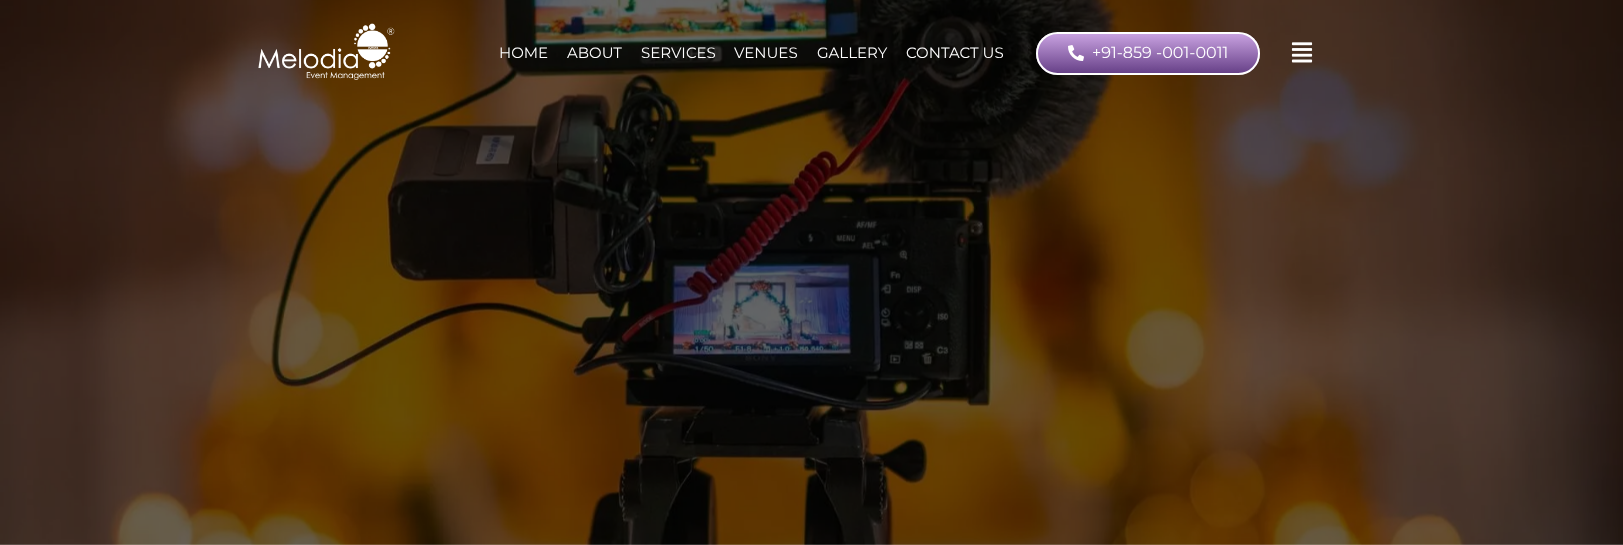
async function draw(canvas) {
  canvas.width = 1623;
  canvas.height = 545;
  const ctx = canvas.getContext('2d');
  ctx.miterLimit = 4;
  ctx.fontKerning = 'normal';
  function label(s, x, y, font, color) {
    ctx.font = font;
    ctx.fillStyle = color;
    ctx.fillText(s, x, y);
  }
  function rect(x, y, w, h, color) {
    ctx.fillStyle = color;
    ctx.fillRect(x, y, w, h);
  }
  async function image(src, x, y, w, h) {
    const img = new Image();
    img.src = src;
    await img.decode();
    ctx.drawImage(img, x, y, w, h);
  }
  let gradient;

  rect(0, 0, 1623, 545, '#fff');
  await image('assets/img1.png', 0, 0, 1623, 545);
  await image('assets/img2.png', 258, 23, 137, 57);
  label('HOME', 499, 58, '15px Montserrat', '#fff');
  label('ABOUT', 567, 58, '15px Montserrat', '#fff');
  label('SERVICES', 641, 58, '15px Montserrat', '#fff');
  label('VENUES', 734, 58, '15px Montserrat', '#fff');
  label('GALLERY', 817, 58, '15px Montserrat', '#fff');
  label('CONTACT US', 906, 58, '15px Montserrat', '#fff');
  ctx.save();
  ctx.beginPath();
  ctx.roundRect(1036, 32, 224, 43, 21.5);
  ctx.clip();
  gradient = ctx.createLinearGradient(1148, 34, 1148, 73);
  gradient.addColorStop(0, '#c8a1e0');
  gradient.addColorStop(1, '#674188');
  ctx.fillStyle = gradient;
  ctx.fillRect(1036, 34, 224, 39);
  ctx.restore();
  ctx.beginPath();
  ctx.roundRect(1037, 33, 222, 41, 20.5);
  ctx.strokeStyle = '#fff';
  ctx.lineWidth = 2;
  ctx.stroke();
  await image('assets/img3.png', 1068, 45, 16, 16);
  label('+91-859 -001-0011', 1092, 58, '16px Montserrat', '#fff');
  await image('assets/img4.png', 1291, 42, 22, 21);
}

draw(document.querySelector('canvas'));
